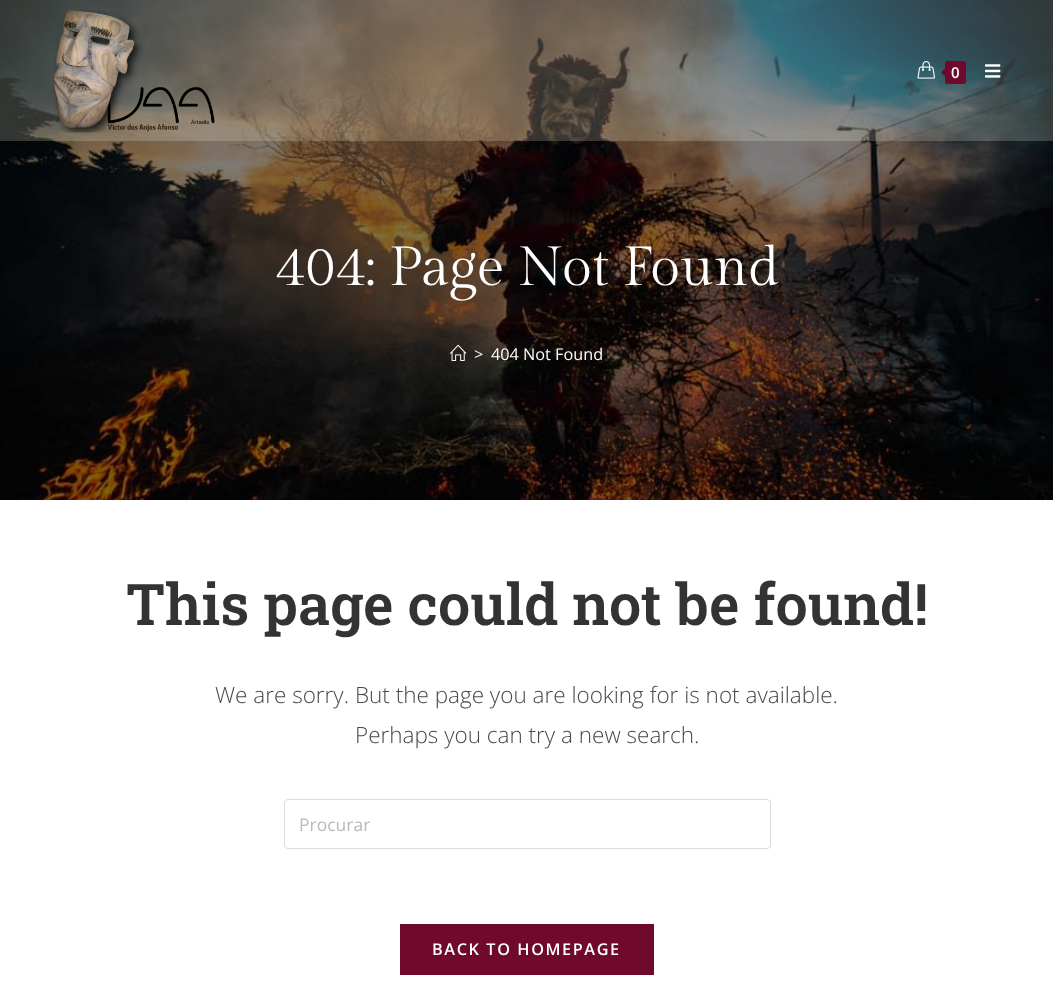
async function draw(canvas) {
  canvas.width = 1053;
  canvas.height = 983;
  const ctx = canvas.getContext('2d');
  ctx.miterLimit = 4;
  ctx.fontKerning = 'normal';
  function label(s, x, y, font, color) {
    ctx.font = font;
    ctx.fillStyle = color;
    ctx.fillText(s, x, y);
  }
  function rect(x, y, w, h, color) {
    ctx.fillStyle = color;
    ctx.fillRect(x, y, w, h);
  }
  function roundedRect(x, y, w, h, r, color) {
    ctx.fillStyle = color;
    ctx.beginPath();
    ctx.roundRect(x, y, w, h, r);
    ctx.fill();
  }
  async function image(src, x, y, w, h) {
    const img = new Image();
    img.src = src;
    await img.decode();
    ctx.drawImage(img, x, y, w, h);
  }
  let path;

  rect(0, 0, 1053, 983, '#fff');
  await image('assets/img4.png', 0, 0, 1053, 500);
  rect(0, 0, 1053, 141, '#f5f5dc33');
  await image('assets/img1.png', 53, 10, 162, 123);
  await image('assets/img2.png', 917, 61, 18, 18);
  roundedRect(945, 61, 21, 23, 2.5, '#6f0a2d');
  path = new Path2D('M947.5 66V79L941 72.5Z');
  ctx.fill(path);
  ctx.letterSpacing = '1px';
  label('0', 951, 78, '600 15px Open Sans', '#fff');
  await image('assets/img3.png', 985, 64, 16, 14);
  ctx.letterSpacing = '0px';
  label('404: Page Not Found', 275, 285, '55px Gilda Display', '#fff');
  await image('assets/img5.png', 450, 344, 17, 17);
  label('>', 474, 360, '16.25px Open Sans', '#fff');
  label('404 Not Found', 491, 360, '16.25px Open Sans', '#fff');
  label('This page could not be found!', 126, 625, '600 57.5px Roboto Slab', '#333');
  label('We are sorry. But the page you are looking for is not available.', 215, 703, '300 22.5px Open Sans', '#4a4a4a');
  label('Perhaps you can try a new search.', 355, 743, '300 22.5px Open Sans', '#4a4a4a');
  ctx.beginPath();
  ctx.roundRect(284.5, 799.5, 486, 49, 3.5);
  ctx.strokeStyle = '#ddd';
  ctx.stroke();
  label('Procurar', 299, 831, '17.5px Open Sans', '#bababa');
  rect(400, 924, 254, 51, '#6f0a2d');
  ctx.letterSpacing = '1.6px';
  label('BACK TO HOMEPAGE', 432, 955, '600 16.25px Open Sans', '#fff');
}

draw(document.querySelector('canvas'));
